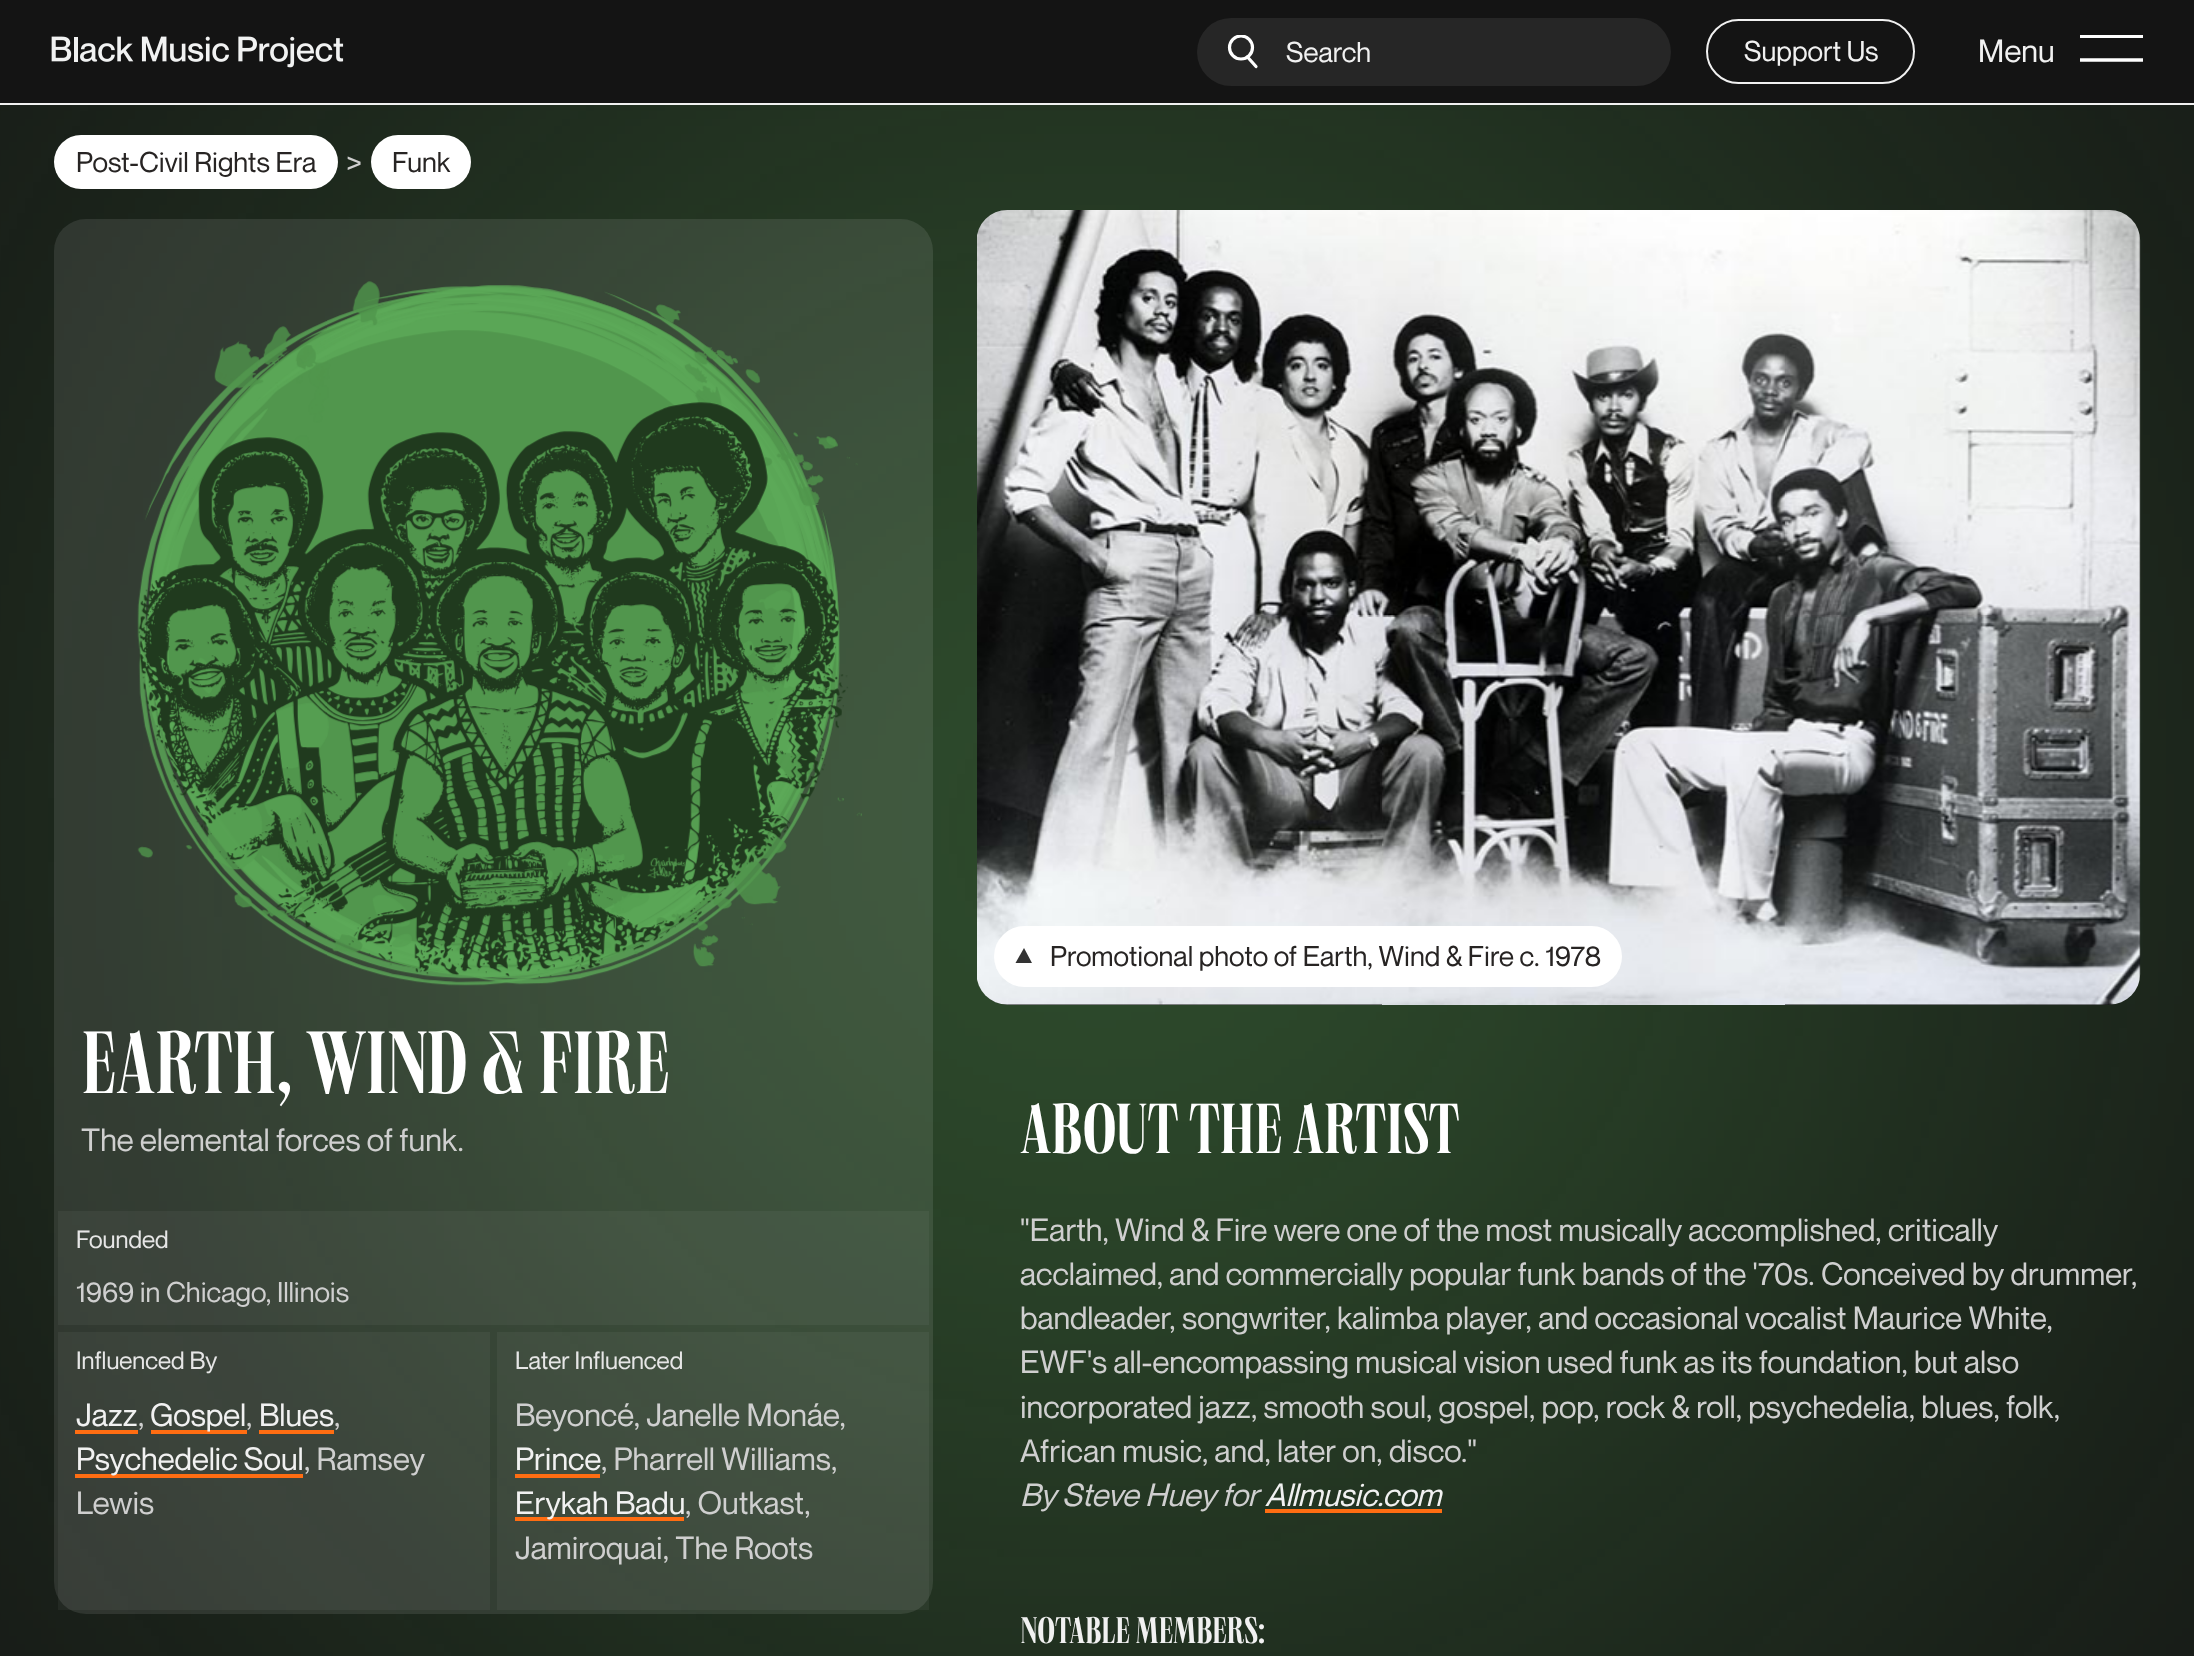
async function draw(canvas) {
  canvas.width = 2194;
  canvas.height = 1656;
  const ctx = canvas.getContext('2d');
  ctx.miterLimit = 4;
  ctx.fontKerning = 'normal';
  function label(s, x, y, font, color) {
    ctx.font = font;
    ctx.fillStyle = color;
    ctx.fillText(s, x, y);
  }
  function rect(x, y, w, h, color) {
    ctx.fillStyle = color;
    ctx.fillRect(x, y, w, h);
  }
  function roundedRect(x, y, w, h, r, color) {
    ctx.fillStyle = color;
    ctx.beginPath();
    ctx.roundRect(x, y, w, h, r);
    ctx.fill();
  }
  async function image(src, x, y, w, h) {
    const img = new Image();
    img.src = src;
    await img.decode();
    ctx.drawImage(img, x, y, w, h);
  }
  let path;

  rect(0, 0, 2194, 1656, '#141414');
  rect(0, 103, 2194, 2, '#f1f1f1');
  await image('assets/img1.png', 51, 36, 293, 32);
  roundedRect(1197, 18, 474, 68, 34, '#262626');
  ctx.save();
  ctx.beginPath();
  ctx.rect(1227, 35, 31, 33);
  ctx.clip();
  ctx.beginPath();
  ctx.arc(1241, 47.5, 11.5, 0, 2 * Math.PI);
  ctx.strokeStyle = '#fff';
  ctx.lineWidth = 3.2;
  ctx.stroke();
  ctx.restore();
  path = new Path2D('M1256 66.5L1247.5 57');
  ctx.strokeStyle = '#fff';
  ctx.lineWidth = 3.2;
  ctx.lineCap = 'round';
  ctx.stroke(path);
  label('Search', 1286, 62, '28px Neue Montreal', '#f1f1f1');
  ctx.beginPath();
  ctx.roundRect(1707, 20, 207, 63, 31.5);
  ctx.strokeStyle = '#f1f1f1';
  ctx.lineWidth = 2;
  ctx.stroke();
  label('Support Us', 1744, 61, '28px Neue Montreal', '#f1f1f1');
  label('Menu', 1978, 62, '31.5px Neue Montreal', '#f1f1f1');
  rect(2080, 35, 63, 3, '#fff');
  path = new Path2D('M2080 60H2143');
  ctx.strokeStyle = '#fff';
  ctx.lineWidth = 3.4;
  ctx.lineCap = 'butt';
  ctx.stroke(path);
  await image('assets/img2.png', 0, 105, 2194, 1551);
  roundedRect(54, 135, 284, 54, 27, '#fff');
  label('Post-Civil Rights Era', 76, 172, '28px Neue Montreal', '#272423');
  label('>', 346, 173, '31.5px Neue Montreal', '#cfcfcf');
  roundedRect(371, 135, 100, 54, 27, '#fff');
  label('Funk', 392, 172, '28px Neue Montreal', '#272423');
  roundedRect(54, 219, 879, 1395, 32, '#f1f1f11a');
  await image('assets/img3.png', 137, 281, 725, 705);
  label('EARTH, WIND & FIRE', 81, 1093, '87.75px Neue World', '#fff');
  label('The elemental forces of funk.', 81, 1151, '31.5px Neue Montreal', '#cfcfcf');
  rect(58, 1211, 871, 114, '#f1f1f10d');
  label('Founded', 76, 1248, '24.5px Neue Montreal', '#e6e6e6');
  label('1969 in Chicago, Illinois', 76, 1302, '28px Neue Montreal', '#cfcfcf');
  rect(58, 1332, 432, 278, '#f1f1f10d');
  label('Influenced By', 76, 1369, '24.5px Neue Montreal', '#e6e6e6');
  label('Jazz', 76, 1426, '31.5px Neue Montreal', '#f1f1f1');
  rect(75, 1430, 63, 4, '#ff6d12');
  label(',', 138, 1426, '31.5px Neue Montreal', '#cfcfcf');
  rect(151, 1430, 96, 4, '#ff6d12');
  label('Gospel', 150, 1426, '31.5px Neue Montreal', '#f1f1f1');
  label(',', 246, 1426, '31.5px Neue Montreal', '#cfcfcf');
  label('Blues', 259, 1426, '31.5px Neue Montreal', '#f1f1f1');
  rect(259, 1430, 75, 4, '#ff6d12');
  label(',', 334, 1426, '31.5px Neue Montreal', '#cfcfcf');
  rect(75, 1474, 228, 4, '#ff6d12');
  label('Psychedelic Soul', 76, 1470, '31.5px Neue Montreal', '#f1f1f1');
  label(', Ramsey', 304, 1470, '31.5px Neue Montreal', '#cfcfcf');
  label('Lewis', 76, 1514, '31.5px Neue Montreal', '#cfcfcf');
  rect(497, 1332, 432, 278, '#f1f1f10d');
  label('Later Influenced', 515, 1369, '24.5px Neue Montreal', '#e6e6e6');
  label('Beyoncé, Janelle Monáe,', 515, 1426, '31.5px Neue Montreal', '#cfcfcf');
  label('Prince', 515, 1470, '31.5px Neue Montreal', '#f1f1f1');
  rect(515, 1474, 85, 4, '#ff6d12');
  label(', Pharrell Williams,', 601, 1470, '31.5px Neue Montreal', '#cfcfcf');
  rect(515, 1517, 169, 4, '#ff6d12');
  label('Erykah Badu', 515, 1514, '31.5px Neue Montreal', '#f1f1f1');
  label(', Outkast,', 685, 1514, '31.5px Neue Montreal', '#cfcfcf');
  label('Jamiroquai, The Roots', 515, 1559, '31.5px Neue Montreal', '#cfcfcf');
  roundedRect(977, 210, 1163, 795, 32, '#141414');
  await image('assets/img4.png', 977, 210, 1164, 795);
  roundedRect(994, 926, 628, 61, 30.5, '#fff');
  ctx.fillStyle = '#333';
  path = new Path2D('M1024 963H1015.5L1024 948L1032 963Z');
  ctx.fill(path);
  label('Promotional photo of Earth, Wind & Fire c. 1978', 1050, 966, '28px Neue Montreal', '#272423');
  label('ABOUT THE ARTIST', 1020, 1153, '70.25px Neue World', '#fff');
  label('"Earth, Wind & Fire were one of the most musically accomplished, critically', 1020, 1241, '31.5px Neue Montreal', '#cfcfcf');
  label('acclaimed, and commercially popular funk bands of the \'70s. Conceived by drummer,', 1020, 1285, '31.5px Neue Montreal', '#cfcfcf');
  label('bandleader, songwriter, kalimba player, and occasional vocalist Maurice White,', 1020, 1329, '31.5px Neue Montreal', '#cfcfcf');
  label('EWF\'s all-encompassing musical vision used funk as its foundation, but also', 1020, 1373, '31.5px Neue Montreal', '#cfcfcf');
  label('incorporated jazz, smooth soul, gospel, pop, rock & roll, psychedelia, blues, folk,', 1020, 1418, '31.5px Neue Montreal', '#cfcfcf');
  label('African music, and, later on, disco."', 1020, 1462, '31.5px Neue Montreal', '#cfcfcf');
  label('By Steve Huey for', 1020, 1506, 'italic 31.5px Neue Montreal', '#cfcfcf');
  label('Allmusic.com', 1265, 1506, 'italic 31.5px Neue Montreal', '#f1f1f1');
  rect(1265, 1509, 177, 4, '#ff6d12');
  label('NOTABLE MEMBERS:', 1020, 1643, '36.75px Neue World', '#f1f1f1');
}

draw(document.querySelector('canvas'));
